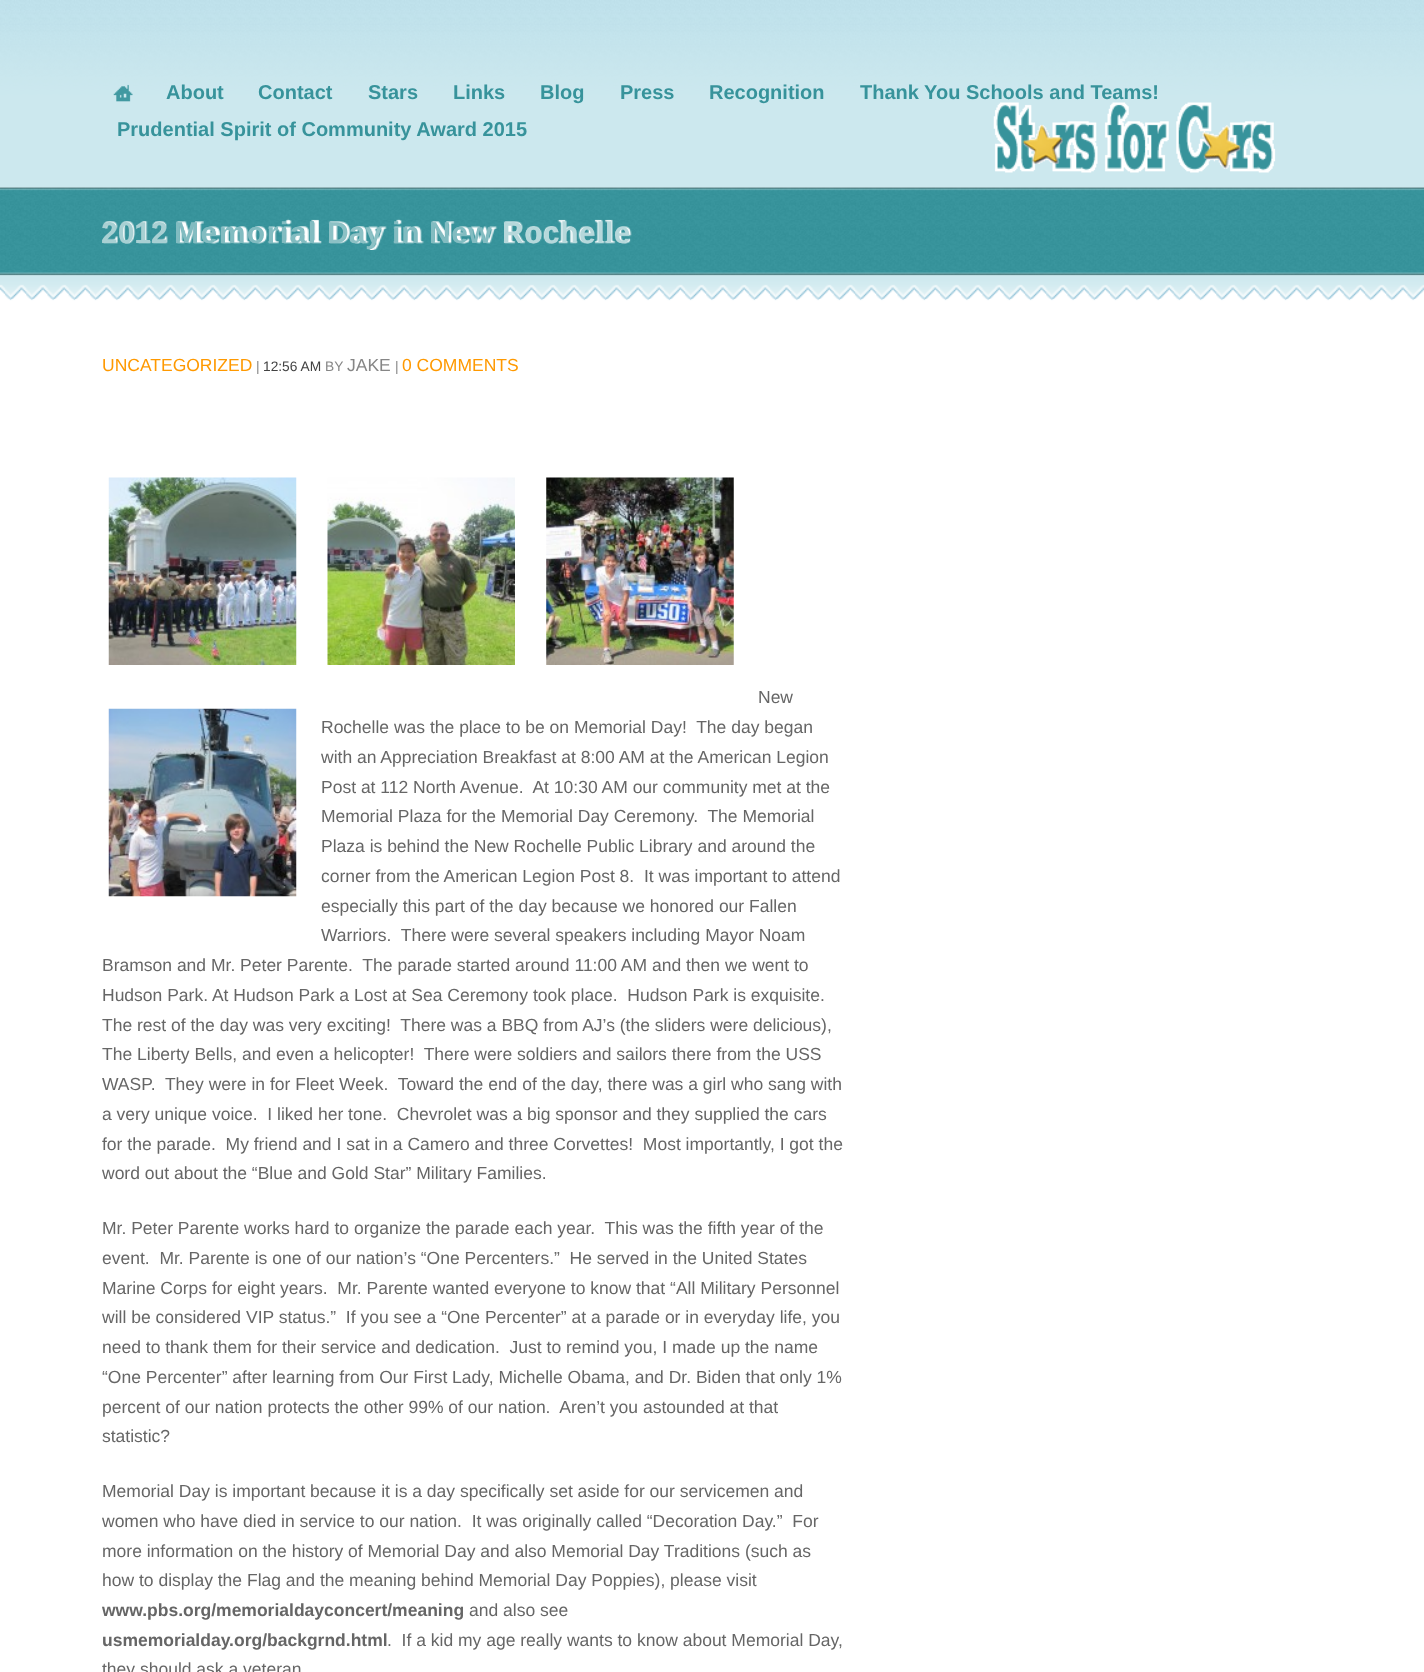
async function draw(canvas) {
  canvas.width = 1424;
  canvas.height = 1672;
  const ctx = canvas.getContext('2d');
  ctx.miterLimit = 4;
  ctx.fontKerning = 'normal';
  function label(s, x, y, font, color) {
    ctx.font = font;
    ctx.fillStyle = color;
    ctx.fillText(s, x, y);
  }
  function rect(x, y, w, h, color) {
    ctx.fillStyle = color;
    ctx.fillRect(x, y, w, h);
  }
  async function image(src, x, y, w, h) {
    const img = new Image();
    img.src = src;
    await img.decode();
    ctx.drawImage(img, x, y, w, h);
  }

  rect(0, 0, 1424, 1672, '#fff');
  await image('assets/img1.png', 0, 0, 1424, 188);
  await image('assets/img2.png', 113, 84, 20, 18);
  label('About', 166, 99, 'bold 20px Liberation Sans', '#37939b');
  label('Contact', 258, 99, 'bold 20px Liberation Sans', '#37939b');
  label('Stars', 368, 99, 'bold 20px Liberation Sans', '#37939b');
  label('Links', 453, 99, 'bold 20px Liberation Sans', '#37939b');
  label('Blog', 540, 99, 'bold 20px Liberation Sans', '#37939b');
  label('Press', 620, 99, 'bold 20px Liberation Sans', '#37939b');
  label('Recognition', 709, 99, 'bold 20px Liberation Sans', '#37939b');
  label('Thank You Schools and Teams!', 860, 99, 'bold 20px Liberation Sans', '#37939b');
  label('Prudential Spirit of Community Award 2015', 117, 136, 'bold 20px Liberation Sans', '#37939b');
  await image('assets/img3.png', 993, 102, 283, 71);
  await image('assets/img4.png', 0, 187, 1424, 114);
  await image('assets/img5.png', 102, 221, 66, 23);
  await image('assets/img6.png', 176, 218, 146, 26);
  await image('assets/img7.png', 393, 218, 31, 26);
  await image('assets/img8.png', 503, 219, 129, 25);
  label('2012', 101, 243, 'bold 30px Liberation Sans', '#a8d0d3');
  ctx.letterSpacing = '1.5px';
  label('Memorial', 174, 243, 'bold 30px Liberation Sans', '#82bcc1');
  await image('assets/img9.png', 328, 221, 59, 29);
  ctx.letterSpacing = '1px';
  label('in', 392, 243, 'bold 30px Liberation Sans', '#82bcc1');
  await image('assets/img10.png', 431, 221, 67, 23);
  ctx.letterSpacing = '0.5px';
  label('Rochelle', 502, 243, 'bold 30px Liberation Sans', '#b6d8db');
  ctx.letterSpacing = '0px';
  label('Day', 327, 243, 'bold 30px Liberation Sans', '#8cc1c5');
  ctx.letterSpacing = '0.5px';
  label('New', 429, 243, 'bold 30px Liberation Sans', '#82bcc1');
  ctx.letterSpacing = '0px';
  label('UNCATEGORIZED', 102, 371, '17.5px Liberation Sans', '#f90');
  label('|', 256, 371, '13.75px Liberation Sans', '#868686');
  label('12:56 AM', 263, 371, '13.75px Liberation Sans', '#424242');
  label('BY', 325, 371, '13.75px Liberation Sans', '#868686');
  label('JAKE', 347, 371, '17.5px Liberation Sans', '#868686');
  label('|', 395, 371, '13.75px Liberation Sans', '#868686');
  label('0 COMMENTS', 402, 371, '17.5px Liberation Sans', '#f90');
  await image('assets/img11.png', 108, 477, 189, 188);
  await image('assets/img12.png', 327, 477, 188, 188);
  await image('assets/img13.png', 546, 477, 188, 188);
  await image('assets/img14.png', 108, 708, 189, 189);
  label('New', 758, 703, '17.5px Liberation Sans', '#666');
  label('Rochelle was the place to be on Memorial Day!  The day began', 321, 733, '17.5px Liberation Sans', '#666');
  label('with an Appreciation Breakfast at 8:00 AM at the American Legion', 321, 763, '17.5px Liberation Sans', '#666');
  label('Post at 112 North Avenue.  At 10:30 AM our community met at the', 321, 793, '17.5px Liberation Sans', '#666');
  label('Memorial Plaza for the Memorial Day Ceremony.  The Memorial', 321, 822, '17.5px Liberation Sans', '#666');
  label('Plaza is behind the New Rochelle Public Library and around the', 321, 852, '17.5px Liberation Sans', '#666');
  label('corner from the American Legion Post 8.  It was important to attend', 321, 882, '17.5px Liberation Sans', '#666');
  label('especially this part of the day because we honored our Fallen', 321, 912, '17.5px Liberation Sans', '#666');
  label('Warriors.  There were several speakers including Mayor Noam', 321, 941, '17.5px Liberation Sans', '#666');
  label('Bramson and Mr. Peter Parente.  The parade started around 11:00 AM and then we went to', 102, 971, '17.5px Liberation Sans', '#666');
  label('Hudson Park. At Hudson Park a Lost at Sea Ceremony took place.  Hudson Park is exquisite.', 102, 1001, '17.5px Liberation Sans', '#666');
  label('The rest of the day was very exciting!  There was a BBQ from AJ’s (the sliders were delicious),', 102, 1031, '17.5px Liberation Sans', '#666');
  label('The Liberty Bells, and even a helicopter!  There were soldiers and sailors there from the USS', 102, 1060, '17.5px Liberation Sans', '#666');
  label('WASP.  They were in for Fleet Week.  Toward the end of the day, there was a girl who sang with', 102, 1090, '17.5px Liberation Sans', '#666');
  label('a very unique voice.  I liked her tone.  Chevrolet was a big sponsor and they supplied the cars', 102, 1120, '17.5px Liberation Sans', '#666');
  label('for the parade.  My friend and I sat in a Camero and three Corvettes!  Most importantly, I got the', 102, 1150, '17.5px Liberation Sans', '#666');
  label('word out about the “Blue and Gold Star” Military Families.', 102, 1179, '17.5px Liberation Sans', '#666');
  label('Mr. Peter Parente works hard to organize the parade each year.  This was the fifth year of the', 102, 1234, '17.5px Liberation Sans', '#666');
  label('event.  Mr. Parente is one of our nation’s “One Percenters.”  He served in the United States', 102, 1264, '17.5px Liberation Sans', '#666');
  label('Marine Corps for eight years.  Mr. Parente wanted everyone to know that “All Military Personnel', 102, 1294, '17.5px Liberation Sans', '#666');
  label('will be considered VIP status.”  If you see a “One Percenter” at a parade or in everyday life, you', 102, 1323, '17.5px Liberation Sans', '#666');
  label('need to thank them for their service and dedication.  Just to remind you, I made up the name', 102, 1353, '17.5px Liberation Sans', '#666');
  label('“One Percenter” after learning from Our First Lady, Michelle Obama, and Dr. Biden that only 1%', 102, 1383, '17.5px Liberation Sans', '#666');
  label('percent of our nation protects the other 99% of our nation.  Aren’t you astounded at that', 102, 1413, '17.5px Liberation Sans', '#666');
  label('statistic?', 102, 1442, '17.5px Liberation Sans', '#666');
  label('Memorial Day is important because it is a day specifically set aside for our servicemen and', 102, 1497, '17.5px Liberation Sans', '#666');
  label('women who have died in service to our nation.  It was originally called “Decoration Day.”  For', 102, 1527, '17.5px Liberation Sans', '#666');
  label('more information on the history of Memorial Day and also Memorial Day Traditions (such as', 102, 1557, '17.5px Liberation Sans', '#666');
  label('how to display the Flag and the meaning behind Memorial Day Poppies), please visit', 102, 1586, '17.5px Liberation Sans', '#666');
  label('www.pbs.org/memorialdayconcert/meaning', 102, 1616, 'bold 17.5px Liberation Sans', '#666');
  label('and also see', 469, 1616, '17.5px Liberation Sans', '#666');
  label('usmemorialday.org/backgrnd.html', 102, 1646, 'bold 17.5px Liberation Sans', '#666');
  label('.  If a kid my age really wants to know about Memorial Day,', 387, 1646, '17.5px Liberation Sans', '#666');
  label('they should ask a veteran', 102, 1675, '17.5px Liberation Sans', '#666');
}

draw(document.querySelector('canvas'));
